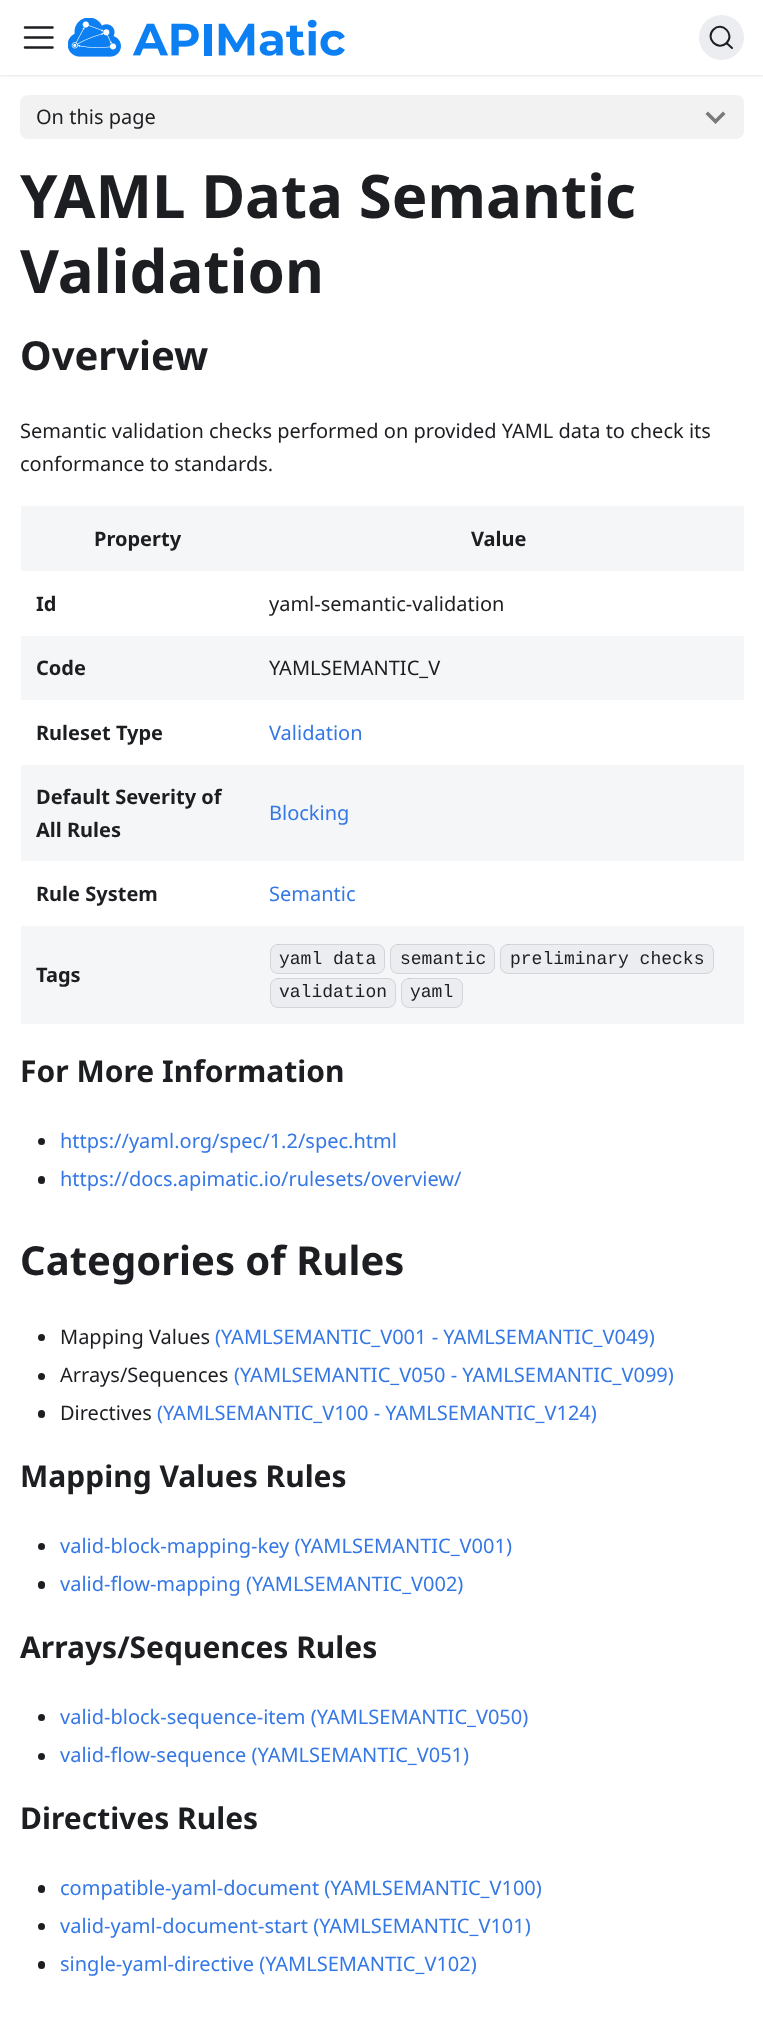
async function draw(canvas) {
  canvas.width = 763;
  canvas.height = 2020;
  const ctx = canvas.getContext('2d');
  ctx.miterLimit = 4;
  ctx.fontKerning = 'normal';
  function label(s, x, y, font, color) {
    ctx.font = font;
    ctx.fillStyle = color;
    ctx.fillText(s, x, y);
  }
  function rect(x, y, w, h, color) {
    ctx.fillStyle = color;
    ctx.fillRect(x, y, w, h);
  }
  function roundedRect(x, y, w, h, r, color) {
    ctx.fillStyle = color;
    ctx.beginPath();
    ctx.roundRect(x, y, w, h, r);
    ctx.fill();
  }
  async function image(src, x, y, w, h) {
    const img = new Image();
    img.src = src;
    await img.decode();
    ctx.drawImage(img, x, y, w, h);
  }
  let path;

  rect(0, 0, 763, 2020, '#fff');
  ctx.save();
  ctx.beginPath();
  ctx.rect(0, 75, 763, 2);
  ctx.clip();
  ctx.fillStyle = '#0000001a';
  ctx.filter = 'blur(1px)';
  ctx.beginPath();
  ctx.rect(0, 1, 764, 75);
  ctx.fill();
  ctx.filter = 'none';
  ctx.restore();
  path = new Path2D('M25 27.5H52.5M25 37.5H52.5M25 47.5H52.5');
  ctx.strokeStyle = '#1c1e21';
  ctx.lineWidth = 2.5;
  ctx.lineCap = 'round';
  ctx.stroke(path);
  await image('assets/img1.png', 68, 18, 277, 39);
  ctx.fillStyle = '#ebedf0';
  ctx.beginPath();
  ctx.arc(721.5, 37.5, 22.5, 0, 2 * Math.PI);
  ctx.fill();
  path = new Path2D('M726.5 43L732 48L726.5 43C718 51.5 704.5 38.5 713.5 29.5C722 21 735.5 34.5 726.5 43Z');
  ctx.lineWidth = 2;
  ctx.lineJoin = 'round';
  ctx.stroke(path);
  roundedRect(20, 95, 724, 44, 8, '#f2f2f2');
  label('On this page', 36, 124, '20px Noto Sans', '#1c1e21');
  ctx.fillStyle = '#797979';
  path = new Path2D('M723 111.5L715.5 119L708 111.5L705.5 114L715.5 124L725.5 114Z');
  ctx.fill(path);
  label('YAML Data Semantic', 20, 218, 'bold 60px Noto Sans', '#1c1e21');
  label('Validation', 20, 293, 'bold 60px Noto Sans', '#1c1e21');
  label('Overview', 20, 370, 'bold 40px Noto Sans', '#1c1e21');
  label('Semantic validation checks performed on provided YAML data to check its', 20, 438, '20px Noto Sans', '#1c1e21');
  label('conformance to standards.', 20, 471, '20px Noto Sans', '#1c1e21');
  rect(21, 506, 723, 65, '#f5f6f7');
  label('Property', 94, 546, 'bold 20px Noto Sans', '#1c1e21');
  label('Value', 471, 546, 'bold 20px Noto Sans', '#1c1e21');
  label('Id', 36, 611, 'bold 20px Noto Sans', '#1c1e21');
  label('yaml-semantic-validation', 269, 611, '20px Noto Sans', '#1c1e21');
  rect(21, 636, 723, 64, '#f5f6f7');
  label('Code', 36, 675, 'bold 20px Noto Sans', '#1c1e21');
  label('YAMLSEMANTIC_V', 269, 675, '20px Noto Sans', '#1c1e21');
  label('Ruleset Type', 36, 740, 'bold 20px Noto Sans', '#1c1e21');
  label('Validation', 269, 740, '20px Noto Sans', '#3578e5');
  rect(21, 765, 723, 96, '#f5f6f7');
  label('Default Severity of', 36, 804, 'bold 20px Noto Sans', '#1c1e21');
  label('All Rules', 36, 837, 'bold 20px Noto Sans', '#1c1e21');
  label('Blocking', 269, 820, '20px Noto Sans', '#3578e5');
  label('Rule System', 36, 901, 'bold 20px Noto Sans', '#1c1e21');
  label('Semantic', 269, 901, '20px Noto Sans', '#3578e5');
  rect(21, 926, 723, 98, '#f5f6f7');
  label('Tags', 36, 982, 'bold 20px Noto Sans', '#1c1e21');
  roundedRect(270, 944, 115, 30, 8, '#ebedf0');
  ctx.beginPath();
  ctx.roundRect(270.5, 944.5, 114, 29, 7.5);
  ctx.strokeStyle = '#0000001a';
  ctx.lineWidth = 1;
  ctx.lineJoin = 'miter';
  ctx.stroke();
  label('yaml data', 279, 964, '18px Liberation Mono', '#1c1e21');
  roundedRect(390, 944, 105, 30, 8, '#ebedf0');
  ctx.beginPath();
  ctx.roundRect(390.5, 944.5, 104, 29, 7.5);
  ctx.stroke();
  label('semantic', 400, 964, '18px Liberation Mono', '#1c1e21');
  roundedRect(500, 944, 214, 30, 8, '#ebedf0');
  ctx.beginPath();
  ctx.roundRect(500.5, 944.5, 213, 29, 7.5);
  ctx.stroke();
  label('preliminary checks', 510, 964, '18px Liberation Mono', '#1c1e21');
  roundedRect(270, 978, 126, 30, 8, '#ebedf0');
  ctx.beginPath();
  ctx.roundRect(270.5, 978.5, 125, 29, 7.5);
  ctx.stroke();
  label('validation', 279, 997, '18px Liberation Mono', '#1c1e21');
  roundedRect(401, 978, 62, 30, 8, '#ebedf0');
  ctx.beginPath();
  ctx.roundRect(401.5, 978.5, 61, 29, 7.5);
  ctx.stroke();
  label('yaml', 410, 997, '18px Liberation Mono', '#1c1e21');
  label('For More Information', 20, 1082, 'bold 30px Noto Sans', '#1c1e21');
  ctx.beginPath();
  ctx.arc(41.5, 1141.5, 3.5, 0, 2 * Math.PI);
  ctx.fill();
  label('https://yaml.org/spec/1.2/spec.html', 60, 1148, '20px Noto Sans', '#3578e5');
  roundedRect(38, 1176, 7, 8, 3.5, '#1c1e21');
  label('https://docs.apimatic.io/rulesets/overview/', 60, 1186, '20px Noto Sans', '#3578e5');
  label('Categories of Rules', 20, 1275, 'bold 40px Noto Sans', '#1c1e21');
  ctx.beginPath();
  ctx.arc(41.5, 1337.5, 3.5, 0, 2 * Math.PI);
  ctx.fill();
  label('Mapping Values', 60, 1344, '20px Noto Sans', '#1c1e21');
  label('(YAMLSEMANTIC_V001 - YAMLSEMANTIC_V049)', 215, 1344, '20px Noto Sans', '#3578e5');
  ctx.fillStyle = '#1c1e21';
  ctx.beginPath();
  ctx.arc(41.5, 1376.5, 3.5, 0, 2 * Math.PI);
  ctx.fill();
  label('Arrays/Sequences', 60, 1382, '20px Noto Sans', '#1c1e21');
  label('(YAMLSEMANTIC_V050 - YAMLSEMANTIC_V099)', 234, 1382, '20px Noto Sans', '#3578e5');
  roundedRect(38, 1410, 7, 8, 3.5, '#1c1e21');
  label('Directives', 60, 1420, '20px Noto Sans', '#1c1e21');
  label('(YAMLSEMANTIC_V100 - YAMLSEMANTIC_V124)', 157, 1420, '20px Noto Sans', '#3578e5');
  label('Mapping Values Rules', 20, 1487, 'bold 30px Noto Sans', '#1c1e21');
  ctx.beginPath();
  ctx.arc(41.5, 1546.5, 3.5, 0, 2 * Math.PI);
  ctx.fill();
  label('valid-block-mapping-key (YAMLSEMANTIC_V001)', 60, 1553, '20px Noto Sans', '#3578e5');
  roundedRect(38, 1581, 7, 8, 3.5, '#1c1e21');
  label('valid-flow-mapping (YAMLSEMANTIC_V002)', 60, 1591, '20px Noto Sans', '#3578e5');
  label('Arrays/Sequences Rules', 20, 1658, 'bold 30px Noto Sans', '#1c1e21');
  ctx.beginPath();
  ctx.arc(41.5, 1717.5, 3.5, 0, 2 * Math.PI);
  ctx.fill();
  label('valid-block-sequence-item (YAMLSEMANTIC_V050)', 60, 1724, '20px Noto Sans', '#3578e5');
  ctx.fillStyle = '#1c1e21';
  ctx.beginPath();
  ctx.arc(41.5, 1756.5, 3.5, 0, 2 * Math.PI);
  ctx.fill();
  label('valid-flow-sequence (YAMLSEMANTIC_V051)', 60, 1762, '20px Noto Sans', '#3578e5');
  label('Directives Rules', 20, 1829, 'bold 30px Noto Sans', '#1c1e21');
  roundedRect(38, 1885, 7, 8, 3.5, '#1c1e21');
  label('compatible-yaml-document (YAMLSEMANTIC_V100)', 60, 1895, '20px Noto Sans', '#3578e5');
  ctx.fillStyle = '#1c1e21';
  ctx.beginPath();
  ctx.arc(41.5, 1926.5, 3.5, 0, 2 * Math.PI);
  ctx.fill();
  label('valid-yaml-document-start (YAMLSEMANTIC_V101)', 60, 1933, '20px Noto Sans', '#3578e5');
  roundedRect(38, 1961, 7, 8, 3.5, '#1c1e21');
  label('single-yaml-directive (YAMLSEMANTIC_V102)', 60, 1971, '20px Noto Sans', '#3578e5');
}

draw(document.querySelector('canvas'));
